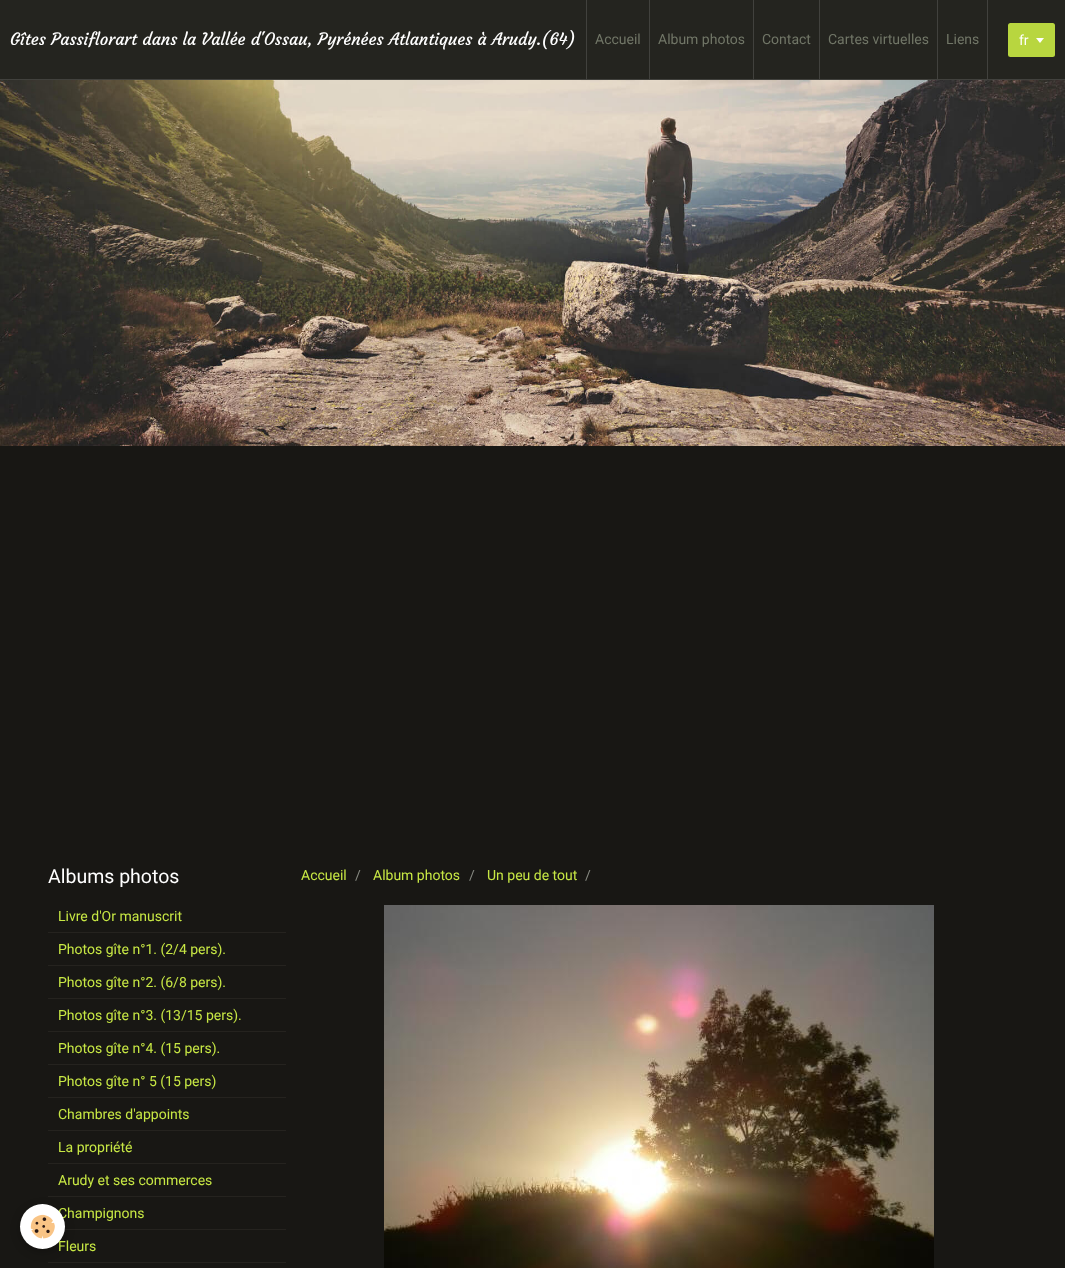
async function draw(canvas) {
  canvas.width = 1065;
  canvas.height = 1268;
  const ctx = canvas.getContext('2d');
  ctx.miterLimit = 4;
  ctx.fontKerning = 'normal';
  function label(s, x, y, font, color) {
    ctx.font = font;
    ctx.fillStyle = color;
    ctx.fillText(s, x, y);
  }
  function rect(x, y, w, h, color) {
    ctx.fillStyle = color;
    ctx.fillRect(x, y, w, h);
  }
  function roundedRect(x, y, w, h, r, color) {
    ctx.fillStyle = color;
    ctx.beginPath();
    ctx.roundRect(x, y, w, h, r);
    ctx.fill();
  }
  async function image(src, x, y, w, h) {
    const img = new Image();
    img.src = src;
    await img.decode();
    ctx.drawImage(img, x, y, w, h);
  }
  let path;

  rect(0, 0, 1065, 1268, '#181714');
  rect(0, 0, 1065, 79, '#24241f');
  rect(0, 79, 1065, 1, '#41413d');
  label('Gîtes Passiflorart dans la Vallée d\'Ossau, Pyrénées Atlantiques à Arudy.(64)', 10, 45, '16.8px Courgette', '#fff');
  rect(649, 0, 1, 79, '#41413d');
  rect(586, 0, 1, 79, '#41413d');
  label('Accueil', 595, 44, '14px Roboto', '#717667');
  rect(753, 0, 1, 79, '#41413d');
  label('Album photos', 658, 44, '14px Roboto', '#717667');
  rect(819, 0, 1, 79, '#41413d');
  label('Contact', 762, 44, '14px Roboto', '#717667');
  rect(937, 0, 1, 79, '#41413d');
  label('Cartes virtuelles', 828, 44, '14px Roboto', '#717667');
  rect(987, 0, 1, 79, '#41413d');
  label('Liens', 946, 44, '14px Roboto', '#717667');
  roundedRect(1008, 23, 47, 34, 2.5, '#b8d63f');
  label('fr', 1019, 45, '14px Roboto', '#fff');
  path = new Path2D('M1036 38H1044L1040 43Z');
  ctx.fill(path);
  await image('assets/img1.png', 0, 80, 1065, 366);
  rect(48, 1196, 238, 1, '#25231f');
  rect(64, 1229, 222, 1, '#25231f');
  rect(48, 1262, 238, 1, '#25231f');
  ctx.fillStyle = '#0000003d';
  ctx.filter = 'blur(5px)';
  ctx.beginPath();
  ctx.roundRect(20, 1207, 45, 45, 22.5);
  ctx.fill();
  ctx.filter = 'none';
  label('Champignons', 58, 1218, '14px Roboto', '#c7e744');
  label('Fleurs', 58, 1251, '14px Roboto', '#c7e744');
  ctx.fillStyle = '#fff';
  ctx.beginPath();
  ctx.arc(42.5, 1226.5, 22.5, 0, 2 * Math.PI);
  ctx.fill();
  await image('assets/img2.png', 30, 1214, 25, 25);
  label('Albums photos', 48, 883, '19.5px Roboto', '#fff');
  rect(48, 932, 238, 1, '#25231f');
  label('Livre d\'Or manuscrit', 58, 921, '14px Roboto', '#c7e744');
  rect(48, 965, 238, 1, '#25231f');
  label('Photos gîte n°1. (2/4 pers).', 58, 954, '14px Roboto', '#c7e744');
  rect(48, 998, 238, 1, '#25231f');
  label('Photos gîte n°2. (6/8 pers).', 58, 987, '14px Roboto', '#c7e744');
  rect(48, 1031, 238, 1, '#25231f');
  label('Photos gîte n°3. (13/15 pers).', 58, 1020, '14px Roboto', '#c7e744');
  rect(48, 1064, 238, 1, '#25231f');
  label('Photos gîte n°4. (15 pers).', 58, 1053, '14px Roboto', '#c7e744');
  rect(48, 1097, 238, 1, '#25231f');
  label('Photos gîte n° 5 (15 pers)', 58, 1086, '14px Roboto', '#c7e744');
  rect(48, 1130, 238, 1, '#25231f');
  label('Chambres d\'appoints', 58, 1119, '14px Roboto', '#c7e744');
  rect(48, 1163, 238, 1, '#25231f');
  label('La propriété', 58, 1152, '14px Roboto', '#c7e744');
  label('Arudy et ses commerces', 58, 1185, '14px Roboto', '#c7e744');
  label('Accueil', 301, 880, '14px Roboto', '#c7e744');
  label('/', 355, 880, '14px Roboto', '#888a82');
  label('Album photos', 373, 880, '14px Roboto', '#c7e744');
  label('/', 469, 880, '14px Roboto', '#888a82');
  label('Un peu de tout', 487, 880, '14px Roboto', '#c7e744');
  label('/', 585, 880, '14px Roboto', '#888a82');
  await image('assets/img3.png', 384, 905, 550, 363);
}

draw(document.querySelector('canvas'));
